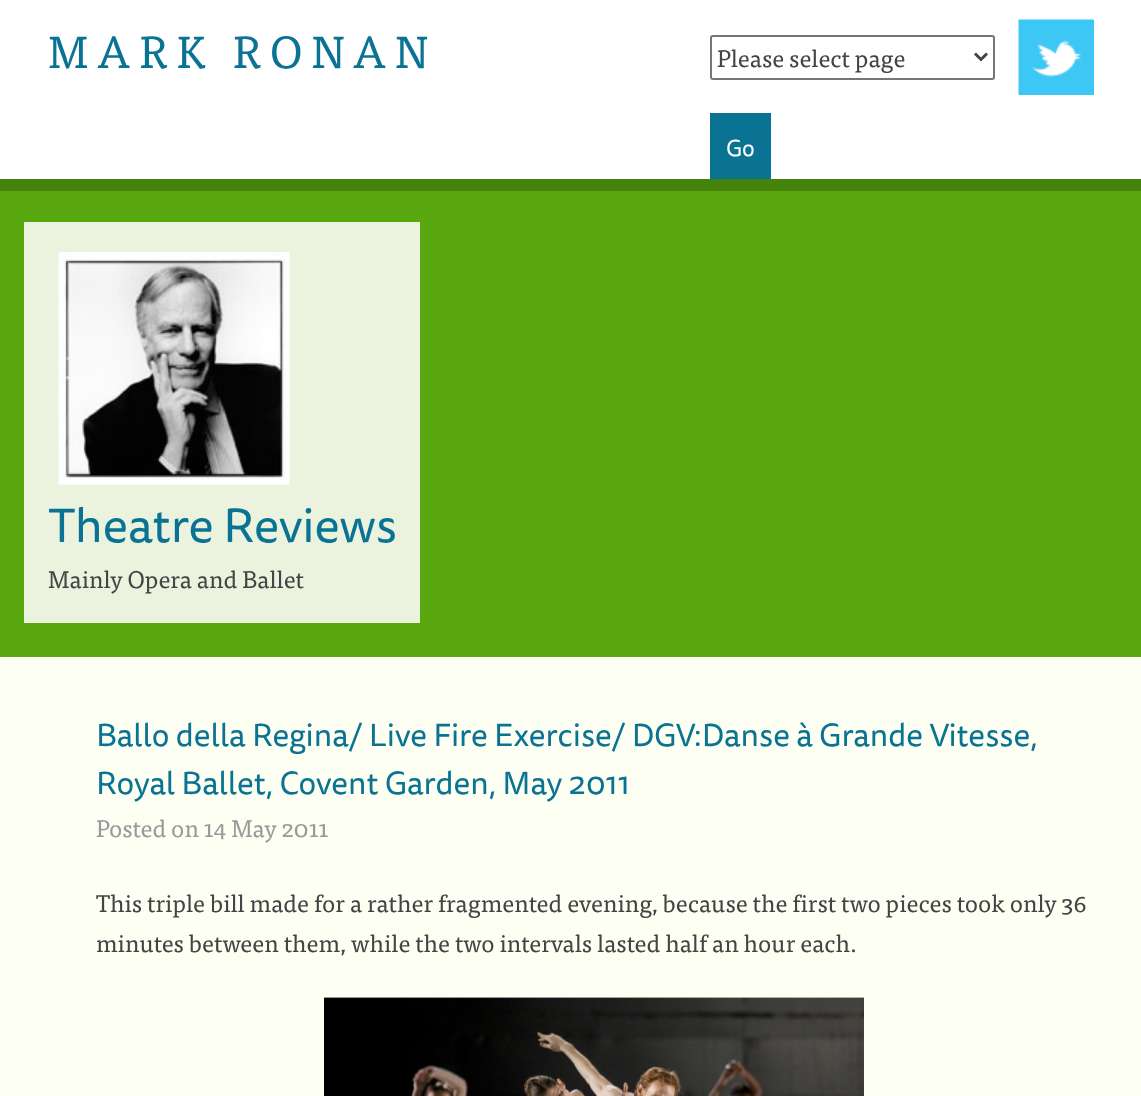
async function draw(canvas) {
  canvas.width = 1141;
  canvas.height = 1096;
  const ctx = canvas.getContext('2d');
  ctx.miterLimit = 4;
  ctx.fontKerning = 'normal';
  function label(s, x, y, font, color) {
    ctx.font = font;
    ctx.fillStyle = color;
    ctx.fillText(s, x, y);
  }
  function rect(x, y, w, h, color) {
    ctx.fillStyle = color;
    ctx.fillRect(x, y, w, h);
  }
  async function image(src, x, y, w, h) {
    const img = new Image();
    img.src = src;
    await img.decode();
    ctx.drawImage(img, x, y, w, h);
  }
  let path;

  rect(0, 0, 1141, 1096, '#fcfff2');
  rect(0, 0, 1141, 179, '#fff');
  ctx.letterSpacing = '9px';
  label('MARK RONAN', 48, 68, '45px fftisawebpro', '#0a7393');
  ctx.beginPath();
  ctx.roundRect(711, 36, 283, 43, 2);
  ctx.strokeStyle = '#767676';
  ctx.lineWidth = 2;
  ctx.stroke();
  path = new Path2D('M975 53.5L981 59.5L987 53.5');
  ctx.strokeStyle = '#444';
  ctx.lineWidth = 3;
  ctx.stroke(path);
  ctx.letterSpacing = '0px';
  label('Please select page', 717, 67, '24px fftisawebpro', '#444');
  rect(710, 113, 61, 66, '#0a7393');
  label('Go', 726, 156, '23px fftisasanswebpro', '#fff');
  rect(1019, 20, 75, 75, '#3dc7f4');
  await image('assets/img1.png', 1018, 19, 76, 76);
  rect(0, 191, 1141, 466, '#59a80f');
  rect(0, 179, 1141, 12, '#45830c');
  rect(24, 222, 396, 401, '#ebf3de');
  await image('assets/img2.png', 58, 252, 232, 233);
  label('Theatre Reviews', 48, 542, '48px fftisasanswebpro', '#0a7393');
  label('Mainly Opera and Ballet', 48, 588, '24px fftisawebpro', '#444');
  label('Ballo della Regina/ Live Fire Exercise/ DGV:Danse à Grande Vitesse,', 96, 746, '31.9px fftisasanswebpro', '#0a7393');
  label('Royal Ballet, Covent Garden, May 2011', 96, 794, '31.9px fftisasanswebpro', '#0a7393');
  label('Posted on 14 May 2011', 96, 837, '24px fftisawebpro', '#999');
  label('This triple bill made for a rather fragmented evening, because the first two pieces took only 36', 96, 912, '24px fftisawebpro', '#444');
  label('minutes between them, while the two intervals lasted half an hour each.', 96, 952, '24px fftisawebpro', '#444');
  await image('assets/img3.png', 324, 997, 540, 99);
}

draw(document.querySelector('canvas'));
